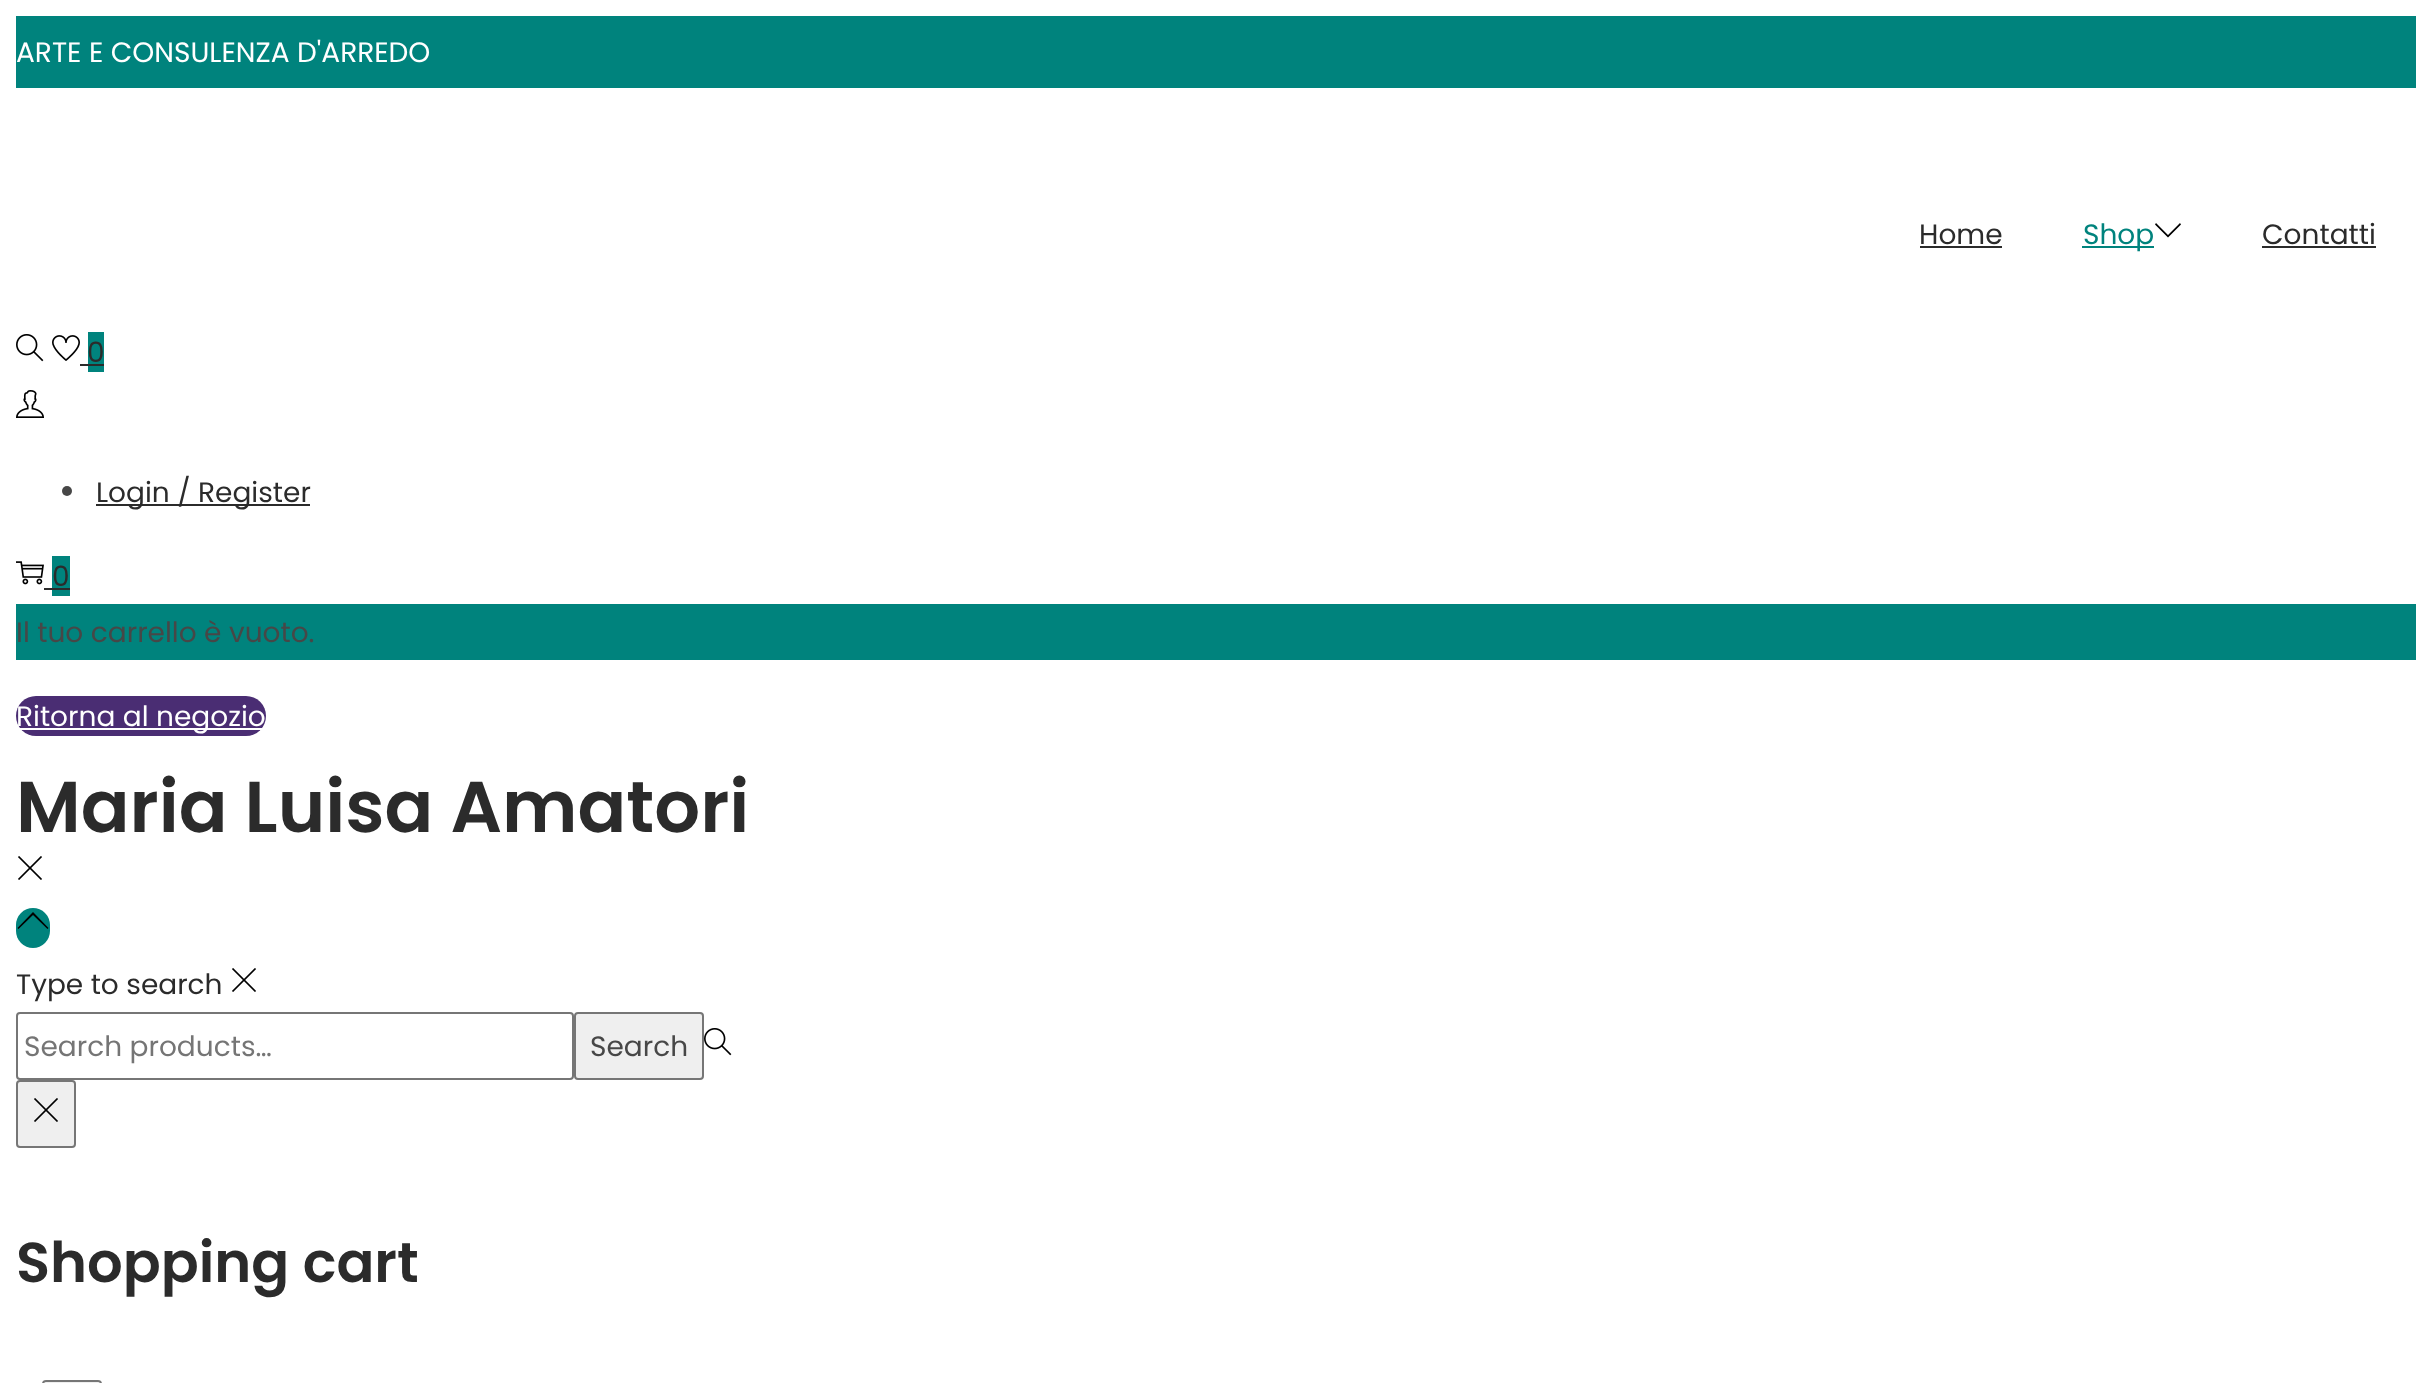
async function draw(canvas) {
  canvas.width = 2432;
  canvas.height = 1383;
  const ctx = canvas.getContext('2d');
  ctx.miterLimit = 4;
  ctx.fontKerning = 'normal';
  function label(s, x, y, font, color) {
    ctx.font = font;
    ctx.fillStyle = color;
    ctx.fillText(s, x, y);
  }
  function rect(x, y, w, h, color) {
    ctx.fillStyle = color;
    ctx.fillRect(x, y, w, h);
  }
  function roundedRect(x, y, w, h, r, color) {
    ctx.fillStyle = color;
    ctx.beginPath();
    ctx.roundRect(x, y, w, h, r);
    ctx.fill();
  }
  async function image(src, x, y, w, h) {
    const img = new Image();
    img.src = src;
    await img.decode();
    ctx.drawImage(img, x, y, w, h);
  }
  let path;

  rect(0, 0, 2432, 1383, '#fff');
  rect(16, 16, 2400, 72, '#00837d');
  label('ARTE E CONSULENZA D\'ARREDO', 16, 62, '28px Poppins', '#fff');
  label('Home', 1919, 244, '28px Poppins', '#2b2b2b');
  rect(1920, 246, 82, 2, '#2b2b2b');
  rect(2082, 246, 72, 2, '#00837d');
  label('Shop', 2083, 244, '28px Poppins', '#00837d');
  ctx.fillStyle = '#000';
  path = new Path2D('M2181 224.5L2168 237.5L2155 224.5L2156 223L2168 235L2180 223Z');
  ctx.fill(path);
  label('Contatti', 2262, 244, '28px Poppins', '#2b2b2b');
  rect(2262, 246, 114, 2, '#2b2b2b');
  await image('assets/img1.png', 16, 334, 28, 28);
  await image('assets/img2.png', 52, 335, 28, 26);
  rect(88, 332, 16, 40, '#00837d');
  label('0', 87, 362, '28px Poppins', '#2b2b2b');
  rect(80, 364, 8, 2, '#2b2b2b');
  rect(88, 364, 16, 2, '#2b2b2b');
  await image('assets/img3.png', 16, 390, 28, 28);
  ctx.fillStyle = '#474747';
  ctx.beginPath();
  ctx.arc(67, 491, 5, 0, 2 * Math.PI);
  ctx.fill();
  rect(96, 504, 214, 2, '#2b2b2b');
  label('Login / Register', 96, 502, '28px Poppins', '#2b2b2b');
  await image('assets/img4.png', 16, 561, 28, 24);
  rect(52, 556, 18, 40, '#00837d');
  label('0', 52, 586, '28px Poppins', '#2b2b2b');
  rect(44, 588, 8, 2, '#2b2b2b');
  rect(52, 588, 18, 2, '#2b2b2b');
  rect(16, 604, 2400, 56, '#00837d');
  label('Il tuo carrello è vuoto.', 16, 642, '28px Poppins', '#474747');
  roundedRect(16, 696, 250, 40, 20, '#4a2d73');
  rect(16, 728, 250, 2, '#fff');
  label('Ritorna al negozio', 16, 726, '28px Poppins', '#fff');
  label('Maria Luisa Amatori', 16, 832, '600 72px Poppins', '#2b2b2b');
  await image('assets/img5.png', 18, 856, 24, 24);
  roundedRect(16, 908, 34, 40, 17, '#00837d');
  ctx.fillStyle = '#000';
  path = new Path2D('M48.5 928L47.5 929L33 915L18.5 929L17.5 928L33 912Z');
  ctx.fill(path);
  label('Type to search', 16, 994, '28px Poppins', '#2b2b2b');
  await image('assets/img5.png', 232, 968, 24, 24);
  ctx.beginPath();
  ctx.roundRect(17, 1013, 556, 66, 3);
  ctx.strokeStyle = '#767676';
  ctx.lineWidth = 2;
  ctx.stroke();
  label('Search products…', 24, 1056, '28px Poppins', '#757575');
  ctx.fillStyle = '#efefef';
  ctx.beginPath();
  ctx.roundRect(575, 1013, 128, 66, 3);
  ctx.fill();
  ctx.stroke();
  label('Search', 590, 1056, '28px Poppins', '#474747');
  await image('assets/img1.png', 704, 1028, 28, 28);
  ctx.fillStyle = '#efefef';
  ctx.beginPath();
  ctx.roundRect(17, 1081, 58, 66, 3);
  ctx.fill();
  ctx.stroke();
  await image('assets/img6.png', 34, 1098, 24, 24);
  label('Shopping cart', 16, 1282, '600 56px Poppins', '#2b2b2b');
  ctx.fillStyle = '#efefef';
  ctx.beginPath();
  ctx.roundRect(43, 1381, 58, 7, 3);
  ctx.fill();
  ctx.stroke();
}

draw(document.querySelector('canvas'));
